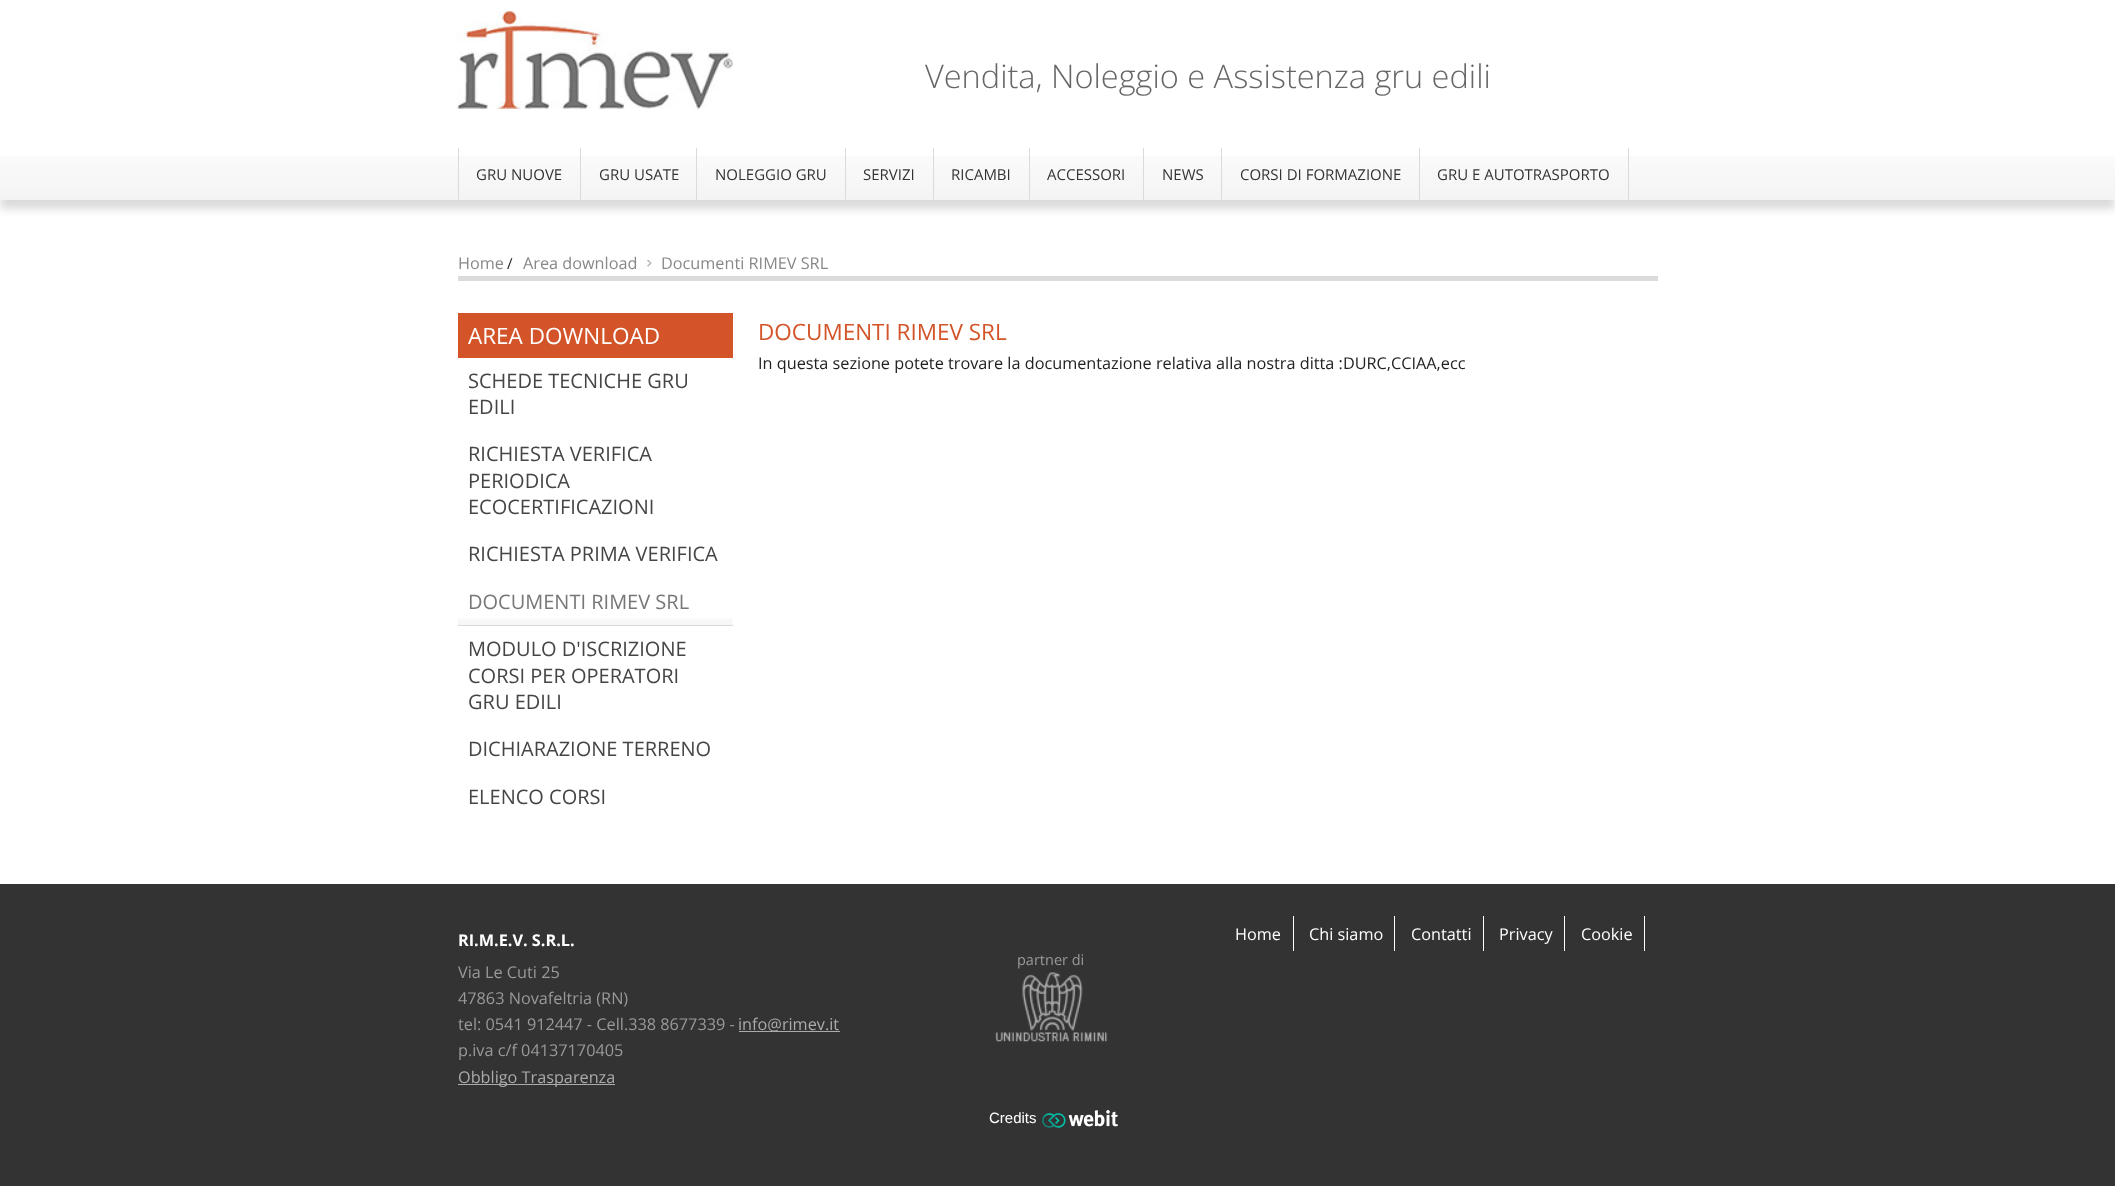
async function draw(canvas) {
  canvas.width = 2115;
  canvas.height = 1186;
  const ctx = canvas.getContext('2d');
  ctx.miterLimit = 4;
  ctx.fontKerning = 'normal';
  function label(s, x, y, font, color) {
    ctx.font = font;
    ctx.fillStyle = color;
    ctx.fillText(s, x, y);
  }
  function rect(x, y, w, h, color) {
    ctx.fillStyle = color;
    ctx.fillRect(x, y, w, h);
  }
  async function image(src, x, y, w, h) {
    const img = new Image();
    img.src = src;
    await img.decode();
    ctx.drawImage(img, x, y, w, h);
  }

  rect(0, 0, 2115, 1186, '#fff');
  await image('assets/img1.png', 0, 156, 2115, 44);
  await image('assets/img2.png', 457, 11, 276, 98);
  label('Vendita, Noleggio e Assistenza gru edili', 925, 88, '300 32.5px Open Sans', '#666');
  ctx.save();
  ctx.beginPath();
  ctx.rect(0, 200, 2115, 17);
  ctx.clip();
  ctx.fillStyle = '#dbdbdb';
  ctx.filter = 'blur(4px)';
  ctx.beginPath();
  ctx.rect(0, 156, 2115, 53);
  ctx.fill();
  ctx.filter = 'none';
  ctx.restore();
  rect(458, 148, 1, 52, '#dbdbdb');
  label('GRU NUOVE', 476, 180, '15px Open Sans', '#333');
  rect(580, 148, 1, 52, '#dbdbdb');
  label('GRU USATE', 599, 180, '15px Open Sans', '#333');
  rect(696, 148, 1, 52, '#dbdbdb');
  label('NOLEGGIO GRU', 715, 180, '15px Open Sans', '#333');
  rect(845, 148, 1, 52, '#dbdbdb');
  label('SERVIZI', 863, 180, '15px Open Sans', '#333');
  rect(933, 148, 1, 52, '#dbdbdb');
  label('RICAMBI', 951, 180, '15px Open Sans', '#333');
  rect(1029, 148, 1, 52, '#dbdbdb');
  label('ACCESSORI', 1047, 180, '15px Open Sans', '#333');
  rect(1143, 148, 1, 52, '#dbdbdb');
  label('NEWS', 1162, 180, '15px Open Sans', '#333');
  rect(1221, 148, 1, 52, '#dbdbdb');
  label('CORSI DI FORMAZIONE', 1240, 180, '15px Open Sans', '#333');
  rect(1628, 148, 1, 52, '#dbdbdb');
  rect(1419, 148, 1, 52, '#dbdbdb');
  label('GRU E AUTOTRASPORTO', 1437, 180, '15px Open Sans', '#333');
  rect(458, 276, 1200, 5, '#dbdbdb');
  label('Home', 458, 269, '16.25px Open Sans', '#888');
  label('/', 507, 269, '15px Open Sans', '#222');
  await image('assets/img3.png', 647, 260, 5, 7);
  label('Area download', 523, 269, '16.25px Open Sans', '#888');
  label('Documenti RIMEV SRL', 661, 269, '16.25px Open Sans', '#888');
  rect(458, 313, 275, 45, '#d35429');
  label('AREA DOWNLOAD', 468, 344, '22.5px Open Sans', '#fff');
  label('SCHEDE TECNICHE GRU', 468, 388, '20px Open Sans', '#454545');
  label('EDILI', 468, 414, '20px Open Sans', '#454545');
  label('RICHIESTA VERIFICA', 468, 461, '20px Open Sans', '#454545');
  label('PERIODICA', 468, 488, '20px Open Sans', '#454545');
  label('ECOCERTIFICAZIONI', 468, 514, '20px Open Sans', '#454545');
  label('RICHIESTA PRIMA VERIFICA', 468, 561, '20px Open Sans', '#454545');
  await image('assets/img4.png', 457, 618, 276, 8);
  rect(458, 625, 275, 1, '#dbdbdb');
  label('DOCUMENTI RIMEV SRL', 468, 609, '20px Open Sans', '#777');
  label('MODULO D\'ISCRIZIONE', 468, 656, '20px Open Sans', '#454545');
  label('CORSI PER OPERATORI', 468, 683, '20px Open Sans', '#454545');
  label('GRU EDILI', 468, 709, '20px Open Sans', '#454545');
  label('DICHIARAZIONE TERRENO', 468, 756, '20px Open Sans', '#454545');
  label('ELENCO CORSI', 468, 804, '20px Open Sans', '#454545');
  label('DOCUMENTI RIMEV SRL', 758, 340, '22.5px Open Sans', '#d35429');
  label('In questa sezione potete trovare la documentazione relativa alla nostra ditta :DURC,CCIAA,ecc', 758, 369, '16.25px Open Sans', '#222');
  rect(0, 884, 2115, 302, '#333');
  label('RI.M.E.V. S.R.L.', 458, 946, 'bold 16.25px Open Sans', '#fff');
  label('Via Le Cuti 25', 458, 978, '16.25px Open Sans', '#999');
  label('47863 Novafeltria (RN)', 458, 1004, '16.25px Open Sans', '#999');
  label('tel: 0541 912447 - Cell.338 8677339 -', 458, 1030, '16.25px Open Sans', '#999');
  rect(739, 1031, 101, 1, '#ababab');
  label('info@rimev.it', 738, 1030, '16.25px Open Sans', '#ababab');
  label('p.iva c/f 04137170405', 458, 1056, '16.25px Open Sans', '#999');
  rect(458, 1084, 157, 1, '#ababab');
  label('Obbligo Trasparenza', 458, 1083, '16.25px Open Sans', '#ababab');
  label('partner di', 1017, 965, '14.5px Open Sans', '#999');
  await image('assets/img5.png', 995, 972, 113, 70);
  label('Home', 1235, 940, '16.25px Open Sans', '#fff');
  rect(1293, 916, 1, 35, '#fff');
  label('Chi siamo', 1309, 940, '16.25px Open Sans', '#fff');
  rect(1394, 916, 1, 35, '#fff');
  label('Contatti', 1411, 940, '16.25px Open Sans', '#fff');
  rect(1483, 916, 1, 35, '#fff');
  label('Privacy', 1499, 940, '16.25px Open Sans', '#fff');
  rect(1564, 916, 1, 35, '#fff');
  label('Cookie', 1581, 940, '16.25px Open Sans', '#fff');
  rect(1644, 916, 1, 35, '#fff');
  label('Credits', 989, 1123, '15px Liberation Sans', '#fff');
  await image('assets/img6.png', 1042, 1110, 76, 18);
}

draw(document.querySelector('canvas'));
